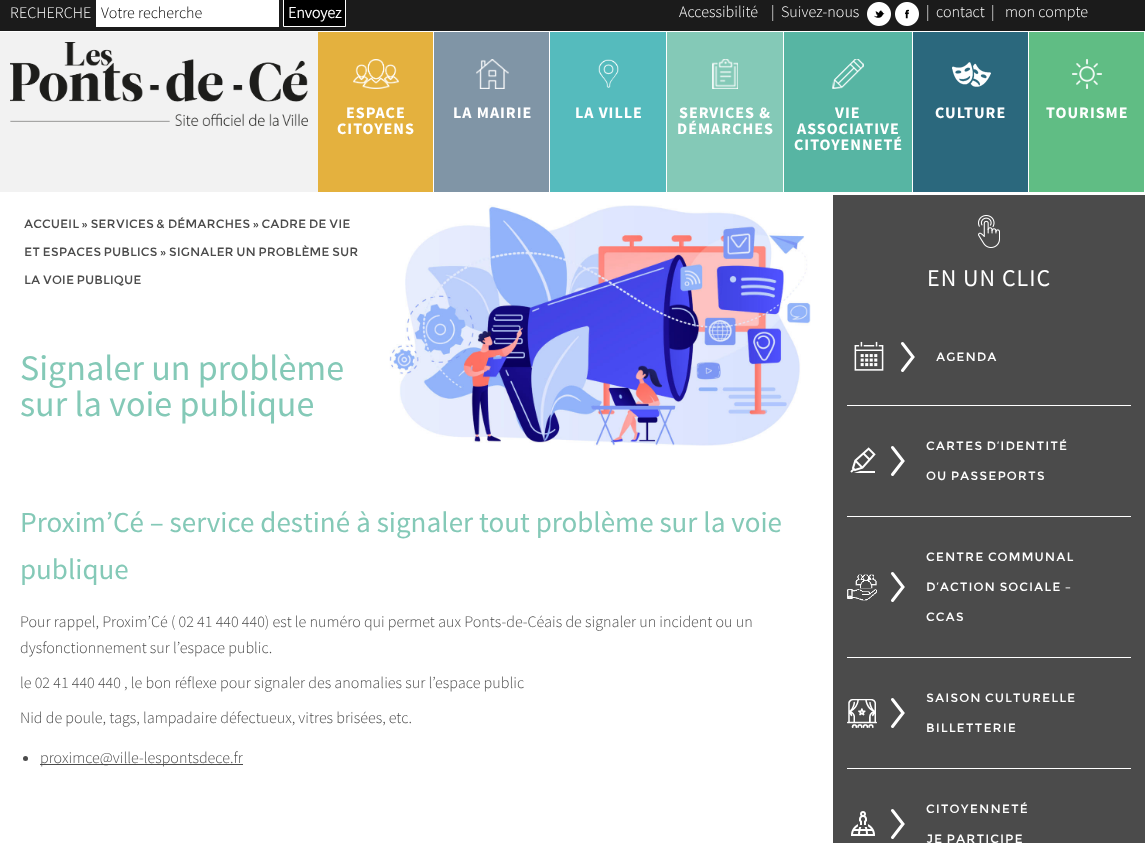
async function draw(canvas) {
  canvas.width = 1145;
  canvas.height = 843;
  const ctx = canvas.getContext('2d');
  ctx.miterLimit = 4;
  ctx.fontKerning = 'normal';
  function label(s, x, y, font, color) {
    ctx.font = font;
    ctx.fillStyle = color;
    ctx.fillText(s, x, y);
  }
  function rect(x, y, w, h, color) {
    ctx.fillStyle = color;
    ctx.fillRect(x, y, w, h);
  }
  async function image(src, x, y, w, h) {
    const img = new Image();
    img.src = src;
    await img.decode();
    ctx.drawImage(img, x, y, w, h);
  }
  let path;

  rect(0, 0, 1145, 843, '#fff');
  rect(0, 32, 318, 160, '#f2f2f2');
  rect(0, 0, 1145, 31, '#1b1b1b');
  label('RECHERCHE', 10, 18, '300 16px Source Sans Pro', '#fff');
  rect(96, 0, 183, 27, '#fff');
  label('Votre recherche', 101, 18, '300 16px Source Sans Pro', '#000');
  ctx.beginPath();
  ctx.rect(283.5, -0.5, 62, 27);
  ctx.fill();
  ctx.strokeStyle = '#fff';
  ctx.stroke();
  label('Envoyez', 288, 18, 'bold 16px Source Sans Pro', '#fff');
  label('Accessibilité', 679, 17, '300 16px Source Sans Pro', '#fff');
  label('|', 771, 17, '300 16px Source Sans Pro', '#fff');
  label('Suivez-nous', 781, 17, '300 16px Source Sans Pro', '#fff');
  await image('assets/img1.png', 867, 2, 24, 24);
  await image('assets/img2.png', 895, 2, 24, 24);
  label('|', 926, 17, '300 16px Source Sans Pro', '#fff');
  label('contact', 936, 17, '300 16px Source Sans Pro', '#fff');
  label('|', 991, 17, '300 16px Source Sans Pro', '#fff');
  label('mon compte', 1005, 17, '300 16px Source Sans Pro', '#fff');
  await image('assets/img3.png', 10, 42, 298, 84);
  rect(318, 32, 115, 160, '#e4b13e');
  await image('assets/img4.png', 353, 59, 46, 30);
  ctx.letterSpacing = '1px';
  label('ESPACE', 346, 118, 'bold 16px "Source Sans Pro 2"', '#fff');
  label('CITOYENS', 337, 134, 'bold 16px "Source Sans Pro 2"', '#fff');
  rect(434, 32, 115, 160, '#8095a6');
  await image('assets/img5.png', 476, 59, 33, 30);
  label('LA MAIRIE', 453, 118, 'bold 16px "Source Sans Pro 2"', '#fff');
  rect(550, 32, 116, 160, '#55bbbd');
  await image('assets/img6.png', 598, 59, 21, 29);
  label('LA VILLE', 575, 118, 'bold 16px "Source Sans Pro 2"', '#fff');
  rect(667, 32, 116, 160, '#84c9b7');
  await image('assets/img7.png', 712, 59, 26, 30);
  label('SERVICES &', 679, 118, 'bold 16px "Source Sans Pro 2"', '#fff');
  label('DÉMARCHES', 677, 134, 'bold 16px "Source Sans Pro 2"', '#fff');
  rect(784, 32, 128, 160, '#57b5a3');
  await image('assets/img8.png', 832, 59, 32, 30);
  label('VIE', 835, 118, 'bold 16px "Source Sans Pro 2"', '#fff');
  label('ASSOCIATIVE', 797, 134, 'bold 16px "Source Sans Pro 2"', '#fff');
  label('CITOYENNETÉ', 794, 150, 'bold 16px "Source Sans Pro 2"', '#fff');
  rect(913, 32, 115, 160, '#2b687d');
  await image('assets/img9.png', 952, 62, 39, 25);
  label('CULTURE', 935, 118, 'bold 16px "Source Sans Pro 2"', '#fff');
  rect(1029, 32, 115, 160, '#60bd84');
  await image('assets/img10.png', 1072, 59, 30, 30);
  label('TOURISME', 1046, 118, 'bold 16px "Source Sans Pro 2"', '#fff');
  ctx.letterSpacing = '0px';
  label('ACCUEIL » SERVICES & DÉMARCHES » CADRE DE VIE', 24, 228, '12px Montserrat', '#4b4b4b');
  label('ET ESPACES PUBLICS » SIGNALER UN PROBLÈME SUR', 24, 256, '12px Montserrat', '#4b4b4b');
  label('LA VOIE PUBLIQUE', 24, 284, '12px Montserrat', '#4b4b4b');
  label('Signaler un problème', 20, 380, '36px Source Sans Pro', '#84c9b7');
  label('sur la voie publique', 20, 416, '36px Source Sans Pro', '#84c9b7');
  await image('assets/img11.png', 389, 205, 422, 241);
  label('Proxim’Cé – service destiné à signaler tout problème sur la voie', 20, 532, '29px Source Sans Pro', '#84c9b7');
  label('publique', 20, 579, '29px Source Sans Pro', '#84c9b7');
  label('Pour rappel, Proxim’Cé ( 02 41 440 440) est le numéro qui permet aux Ponts-de-Céais de signaler un incident ou un', 20, 627, '300 16px Source Sans Pro', '#4b4b4b');
  label('dysfonctionnement sur l’espace public.', 20, 653, '300 16px Source Sans Pro', '#4b4b4b');
  label('le 02 41 440 440 , le bon réflexe pour signaler des anomalies sur l’espace public', 20, 688, '300 16px Source Sans Pro', '#4b4b4b');
  label('Nid de poule, tags, lampadaire défectueux, vitres brisées, etc.', 20, 723, '300 16px Source Sans Pro', '#4b4b4b');
  ctx.beginPath();
  ctx.arc(25.5, 758.5, 2.5, 0, 2 * Math.PI);
  ctx.fill();
  rect(40, 764, 203, 1, '#4b4b4b');
  label('proximce@ville-lespontsdece.fr', 40, 763, '300 16px Source Sans Pro', '#4b4b4b');
  rect(833, 195, 312, 648, '#4b4b4b');
  await image('assets/img12.png', 978, 215, 22, 33);
  ctx.letterSpacing = '1px';
  label('EN UN CLIC', 927, 286, '24px Source Sans Pro', '#fff');
  rect(847, 405, 284, 1, '#fff');
  await image('assets/img13.png', 854, 341, 30, 30);
  path = new Path2D('M902.5 343.5L913 357L902.5 370.5');
  ctx.lineWidth = 3;
  ctx.lineCap = 'round';
  ctx.stroke(path);
  label('AGENDA', 936, 361, '12px Montserrat', '#fff');
  rect(847, 516, 284, 1, '#fff');
  await image('assets/img14.png', 850, 447, 26, 26);
  path = new Path2D('M892.5 447.5L903 461L892.5 474.5');
  ctx.stroke(path);
  label('CARTES D’IDENTITÉ', 926, 450, '12px Montserrat', '#fff');
  label('OU PASSEPORTS', 926, 480, '12px Montserrat', '#fff');
  rect(847, 657, 284, 1, '#fff');
  await image('assets/img15.png', 847, 574, 30, 27);
  path = new Path2D('M892.5 573.5L903 587L892.5 600.5');
  ctx.stroke(path);
  label('CENTRE COMMUNAL', 926, 561, '12px Montserrat', '#fff');
  label('D’ACTION SOCIALE –', 926, 591, '12px Montserrat', '#fff');
  label('CCAS', 926, 621, '12px Montserrat', '#fff');
  rect(847, 768, 284, 1, '#fff');
  await image('assets/img16.png', 847, 699, 30, 29);
  path = new Path2D('M892.5 699.5L903 713L892.5 726.5');
  ctx.stroke(path);
  label('SAISON CULTURELLE', 926, 702, '12px Montserrat', '#fff');
  label('BILLETTERIE', 926, 732, '12px Montserrat', '#fff');
  await image('assets/img17.png', 851, 811, 24, 25);
  path = new Path2D('M892.5 810.5L903 824L892.5 837.5');
  ctx.stroke(path);
  label('CITOYENNETÉ', 926, 813, '12px Montserrat', '#fff');
  label('JE PARTICIPE', 926, 843, '12px Montserrat', '#fff');
}

draw(document.querySelector('canvas'));
